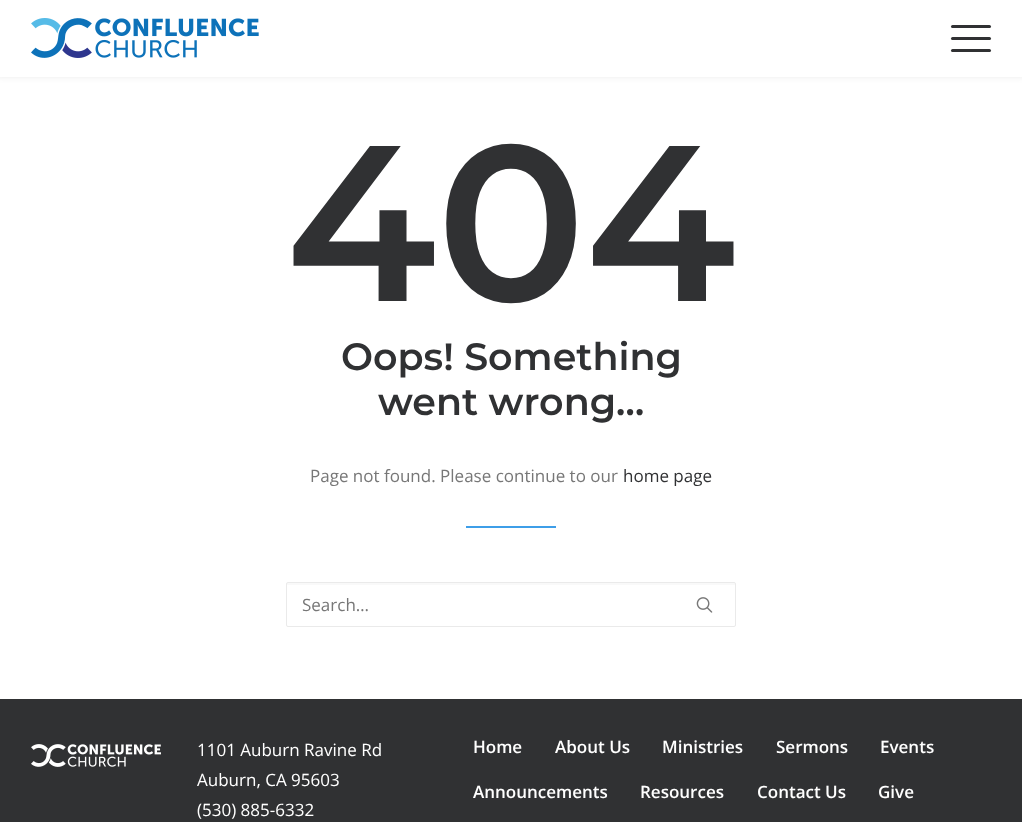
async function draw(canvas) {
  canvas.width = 1022;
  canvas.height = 822;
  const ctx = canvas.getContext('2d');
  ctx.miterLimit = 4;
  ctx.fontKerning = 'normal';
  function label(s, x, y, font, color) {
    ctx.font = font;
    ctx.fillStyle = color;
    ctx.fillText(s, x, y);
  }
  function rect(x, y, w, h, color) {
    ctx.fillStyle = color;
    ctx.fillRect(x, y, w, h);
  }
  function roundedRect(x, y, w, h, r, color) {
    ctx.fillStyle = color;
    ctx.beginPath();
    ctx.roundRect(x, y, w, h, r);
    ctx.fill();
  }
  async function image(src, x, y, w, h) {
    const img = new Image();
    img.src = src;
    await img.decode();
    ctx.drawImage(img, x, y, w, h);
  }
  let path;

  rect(0, 0, 1022, 822, '#fff');
  ctx.fillStyle = '#0000001a';
  ctx.filter = 'blur(3.5px)';
  ctx.beginPath();
  ctx.rect(-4, 1, 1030, 75);
  ctx.fill();
  ctx.filter = 'none';
  rect(0, 0, 1022, 77, '#fff');
  await image('assets/img1.png', 31, 18, 228, 40);
  roundedRect(951, 37, 40, 3, 1.5, '#303133');
  roundedRect(951, 25, 40, 3, 1.5, '#303133');
  roundedRect(951, 49, 40, 3, 1.5, '#303133');
  label('404', 286, 301, '600 221.5px Montserrat', '#303133');
  label('Oops! Something', 341, 370, '600 38px Montserrat', '#303133');
  label('went wrong…', 378, 415, '600 38px Montserrat', '#303133');
  label('Page not found. Please continue to our', 310, 482, '17px Open Sans', '#777');
  label('home page', 623, 482, '17px Open Sans', '#303133');
  rect(466, 526, 90, 2, '#3e9ee8');
  ctx.fillStyle = '#f9f9f9';
  path = new Path2D('M288 585H734C735 585 735 585 735 586C735 585 735 583 734 583H288H287V586C287 585 287 585 288 585Z');
  ctx.fill(path);
  ctx.beginPath();
  ctx.roundRect(286.5, 582.5, 449, 44, 1.5);
  ctx.strokeStyle = '#eaeaea';
  ctx.stroke();
  label('Search…', 302, 611, '17px Open Sans', '#777');
  await image('assets/img2.png', 696, 597, 17, 16);
  rect(0, 699, 1022, 123, '#303133');
  await image('assets/img3.png', 31, 744, 130, 23);
  label('1101 Auburn Ravine Rd', 197, 756, '17px Open Sans', '#fff');
  label('Auburn, CA 95603', 197, 786, '17px Open Sans', '#fff');
  label('(530) 885-6332', 197, 816, '17px Open Sans', '#fff');
  label('Home', 473, 753, '600 17px Open Sans', '#fff');
  label('About Us', 555, 753, '600 17px Open Sans', '#fff');
  label('Ministries', 662, 753, '600 17px Open Sans', '#fff');
  label('Sermons', 776, 753, '600 17px Open Sans', '#fff');
  label('Events', 880, 753, '600 17px Open Sans', '#fff');
  label('Announcements', 473, 798, '600 17px Open Sans', '#fff');
  label('Resources', 640, 798, '600 17px Open Sans', '#fff');
  label('Contact Us', 757, 798, '600 17px Open Sans', '#fff');
  label('Give', 878, 798, '600 17px Open Sans', '#fff');
}

draw(document.querySelector('canvas'));
